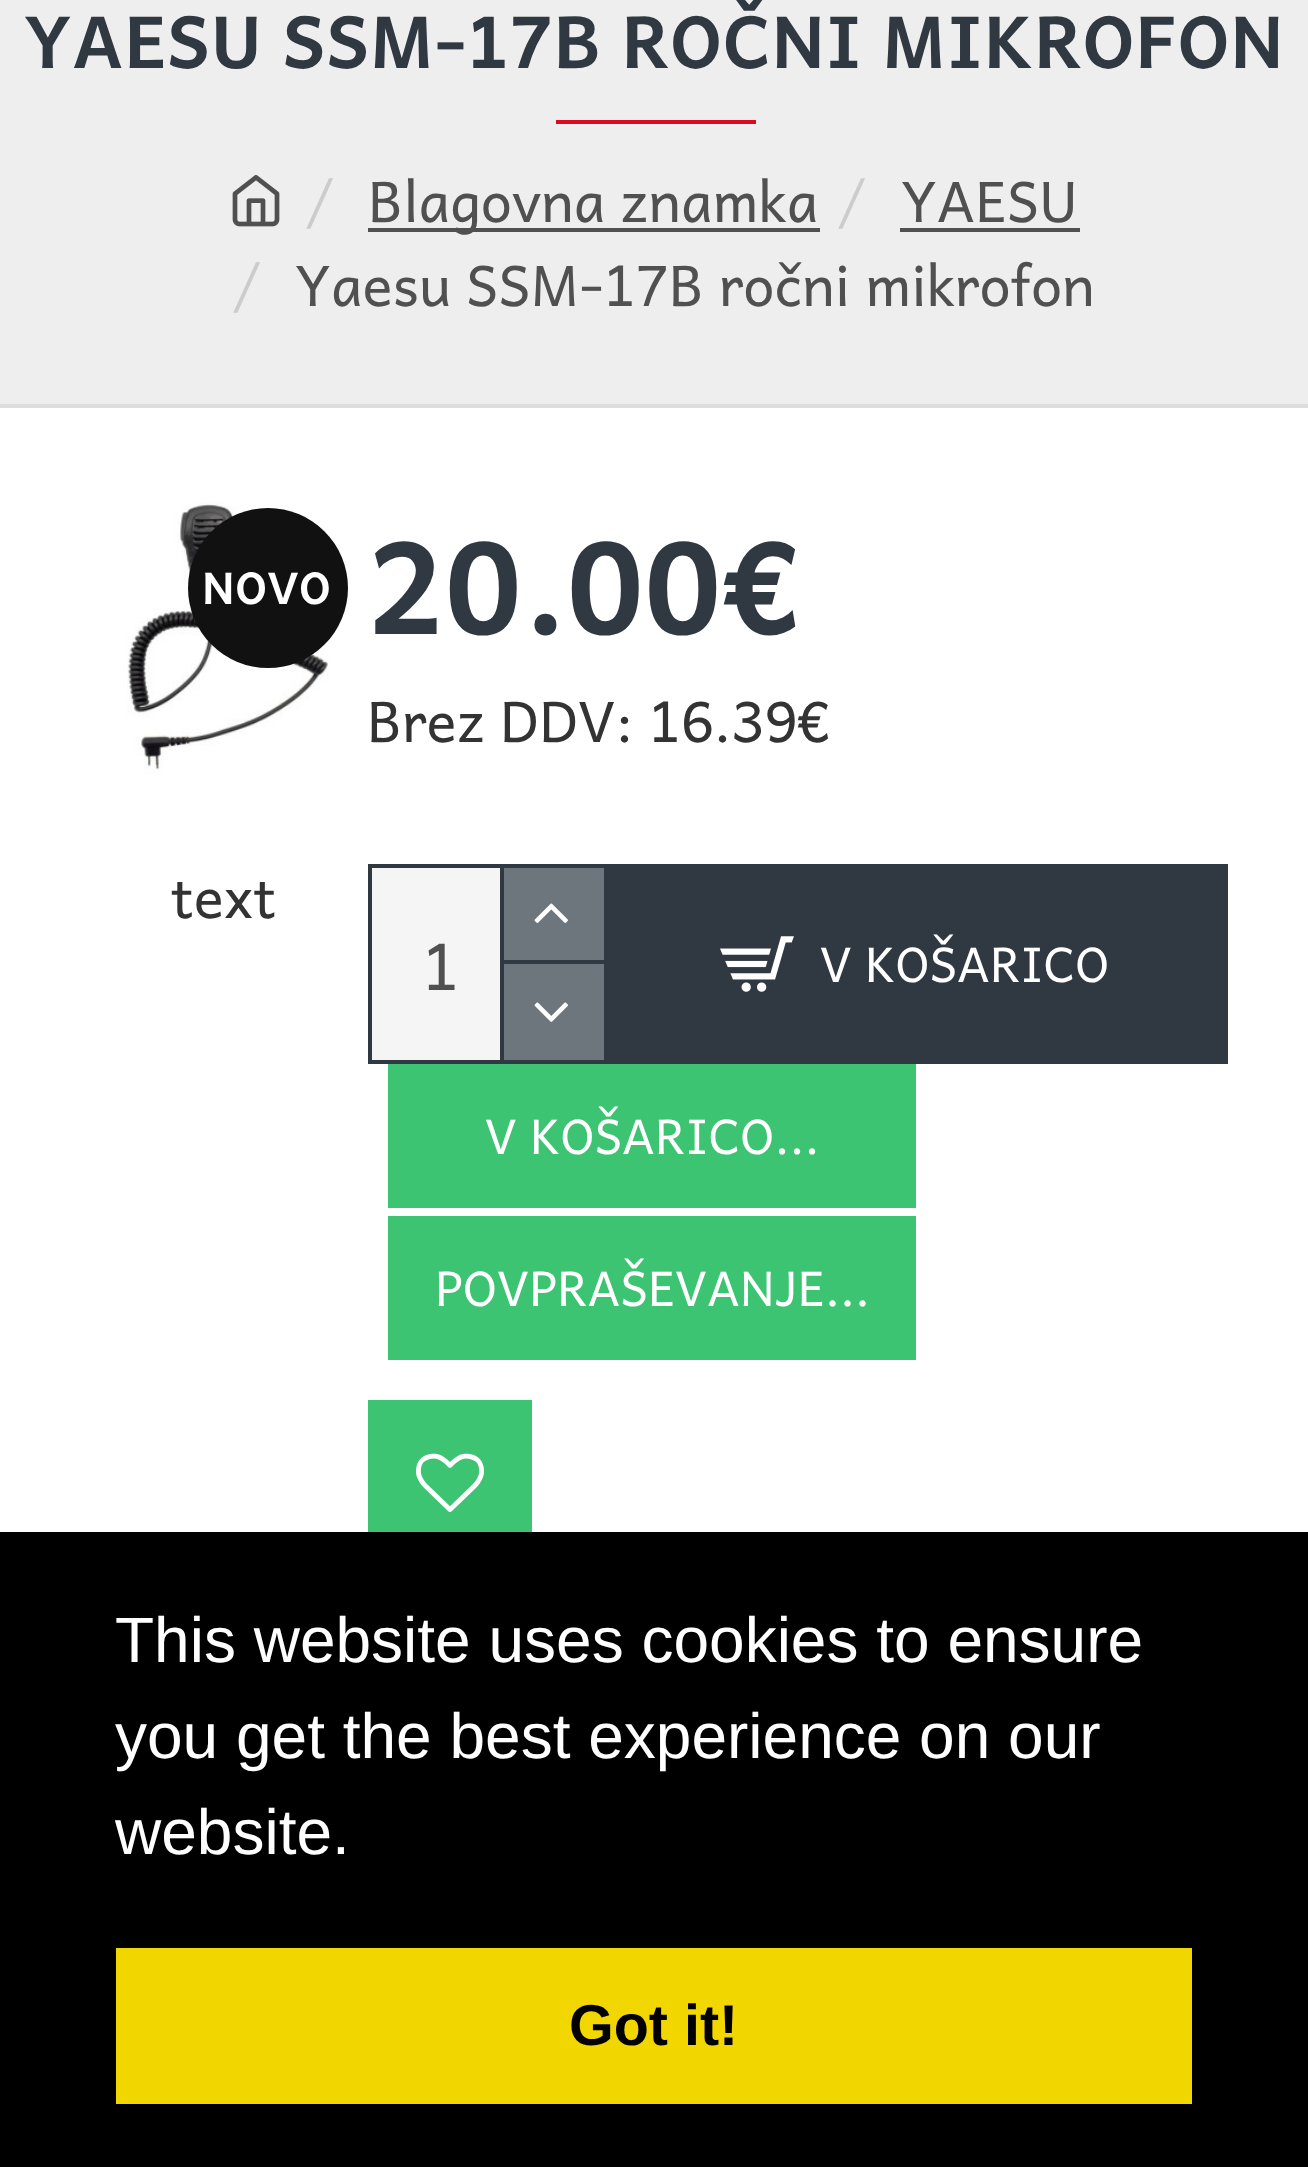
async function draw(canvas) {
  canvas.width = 1308;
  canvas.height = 2167;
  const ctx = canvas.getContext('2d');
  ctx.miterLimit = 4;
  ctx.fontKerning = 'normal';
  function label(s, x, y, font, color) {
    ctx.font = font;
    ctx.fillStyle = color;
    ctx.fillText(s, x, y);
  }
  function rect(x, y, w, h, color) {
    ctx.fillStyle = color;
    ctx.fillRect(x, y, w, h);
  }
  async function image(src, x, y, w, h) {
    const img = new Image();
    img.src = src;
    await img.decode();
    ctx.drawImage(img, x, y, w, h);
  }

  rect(0, 0, 1308, 2167, '#fff');
  rect(0, 0, 1308, 404, '#eee');
  label('YAESU SSM-17B ROČNI MIKROFON', 24, 68, 'bold 72px Andika', '#303841');
  rect(556, 120, 200, 4, '#da0a22');
  rect(0, 404, 1308, 4, '#ddd');
  await image('assets/img1.png', 232, 175, 48, 52);
  label('/', 306, 222, '56px Andika', '#ccc');
  rect(368, 228, 452, 4, '#505050');
  label('Blagovna znamka', 368, 222, '56px Andika', '#505050');
  label('/', 838, 222, '56px Andika', '#ccc');
  label('YAESU', 901, 222, '56px Andika', '#505050');
  rect(900, 228, 180, 4, '#505050');
  label('/', 233, 306, '56px Andika', '#ccc');
  label('Yaesu SSM-17B ročni mikrofon', 295, 306, '56px Andika', '#505050');
  await image('assets/img2.png', 127, 502, 202, 272);
  ctx.fillStyle = '#111';
  ctx.beginPath();
  ctx.arc(268, 588, 80, 0, 2 * Math.PI);
  ctx.fill();
  label('NOVO', 202, 604, 'bold 44px Andika', '#fff');
  label('text', 171, 918, '56px Andika', '#333');
  label('20.00€', 367, 634, 'bold 128px Andika', '#303841');
  label('Brez DDV: 16.39€', 367, 742, '56px Andika', '#333');
  ctx.strokeStyle = '#303841';
  ctx.lineWidth = 4;
  ctx.strokeRect(370, 866, 236, 196);
  rect(372, 868, 128, 192, '#f5f5f5');
  label('1', 422, 990, '64px Andika', '#505050');
  rect(500, 868, 4, 192, '#303841');
  rect(504, 868, 100, 92, '#6d767d');
  rect(504, 960, 100, 4, '#303841');
  await image('assets/img3.png', 534, 903, 34, 20);
  rect(504, 964, 100, 96, '#6d767d');
  await image('assets/img4.png', 534, 1002, 34, 20);
  rect(608, 864, 620, 200, '#303841');
  await image('assets/img5.png', 720, 936, 74, 56);
  label('V KOŠARICO', 820, 982, '48px Andika', '#fff');
  rect(388, 1064, 528, 144, '#3cc472');
  label('V KOŠARICO...', 485, 1154, '48px Andika', '#fff');
  rect(388, 1216, 528, 144, '#3cc472');
  label('POVPRAŠEVANJE...', 435, 1306, '48px Andika', '#fff');
  rect(368, 1400, 164, 132, '#3cc472');
  await image('assets/img6.png', 416, 1453, 68, 59);
  rect(0, 1532, 1308, 635, '#000');
  label('This website uses cookies to ensure', 115, 1662, '64px Liberation Sans', '#fff');
  label('you get the best experience on our', 115, 1758, '64px Liberation Sans', '#fff');
  label('website.', 115, 1854, '64px Liberation Sans', '#fff');
  rect(116, 1948, 1076, 156, '#f1d600');
  label('Got it!', 569, 2045, 'bold 57.5px Liberation Sans', '#000');
}

draw(document.querySelector('canvas'));
